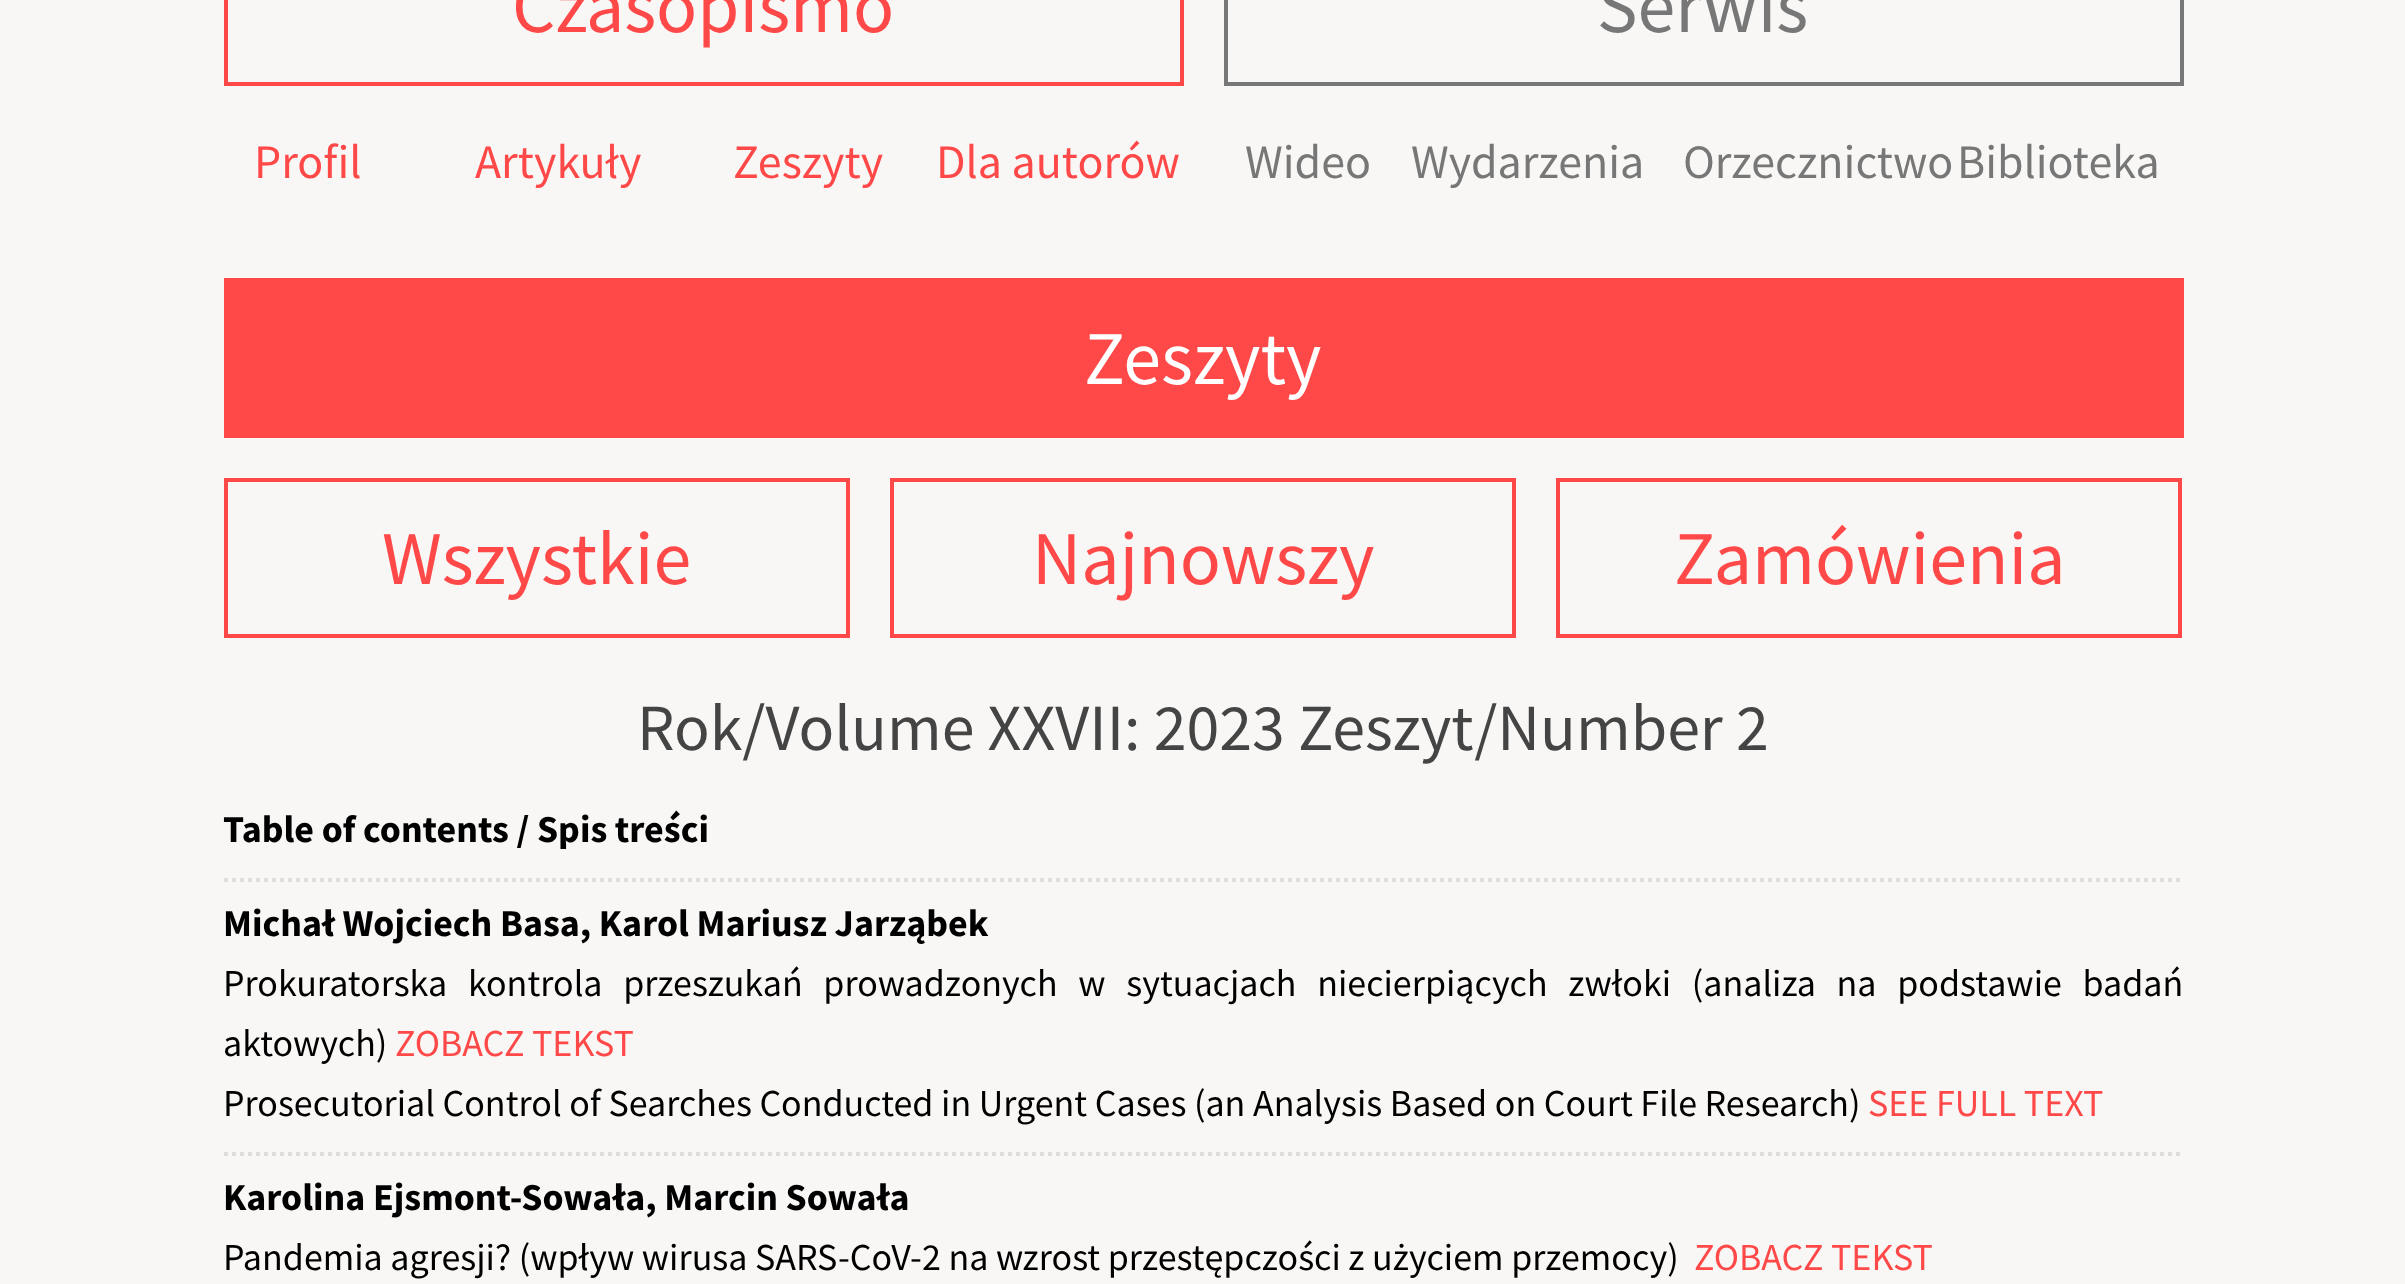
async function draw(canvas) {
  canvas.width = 2405;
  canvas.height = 1284;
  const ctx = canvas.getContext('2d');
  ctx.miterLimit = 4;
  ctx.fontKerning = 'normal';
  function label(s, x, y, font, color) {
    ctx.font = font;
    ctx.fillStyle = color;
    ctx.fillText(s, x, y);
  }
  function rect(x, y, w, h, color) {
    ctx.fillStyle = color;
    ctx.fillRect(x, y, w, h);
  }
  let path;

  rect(0, 0, 2405, 1284, '#f8f7f5');
  ctx.strokeStyle = '#ff4848';
  ctx.lineWidth = 4;
  ctx.strokeRect(226, -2, 956, 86);
  label('Czasopismo', 512, 32, '76px Source Sans Pro', '#ff4848');
  label('Profil', 254, 178, '48px Source Sans Pro', '#ff4848');
  label('Artykuły', 475, 178, '48px Source Sans Pro', '#ff4848');
  label('Zeszyty', 733, 178, '48px Source Sans Pro', '#ff4848');
  label('Dla autorów', 936, 178, '48px Source Sans Pro', '#ff4848');
  ctx.strokeStyle = '#777';
  ctx.strokeRect(1226, -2, 956, 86);
  label('Serwis', 1597, 32, '76px Source Sans Pro', '#777');
  label('Wideo', 1245, 178, '48px Source Sans Pro', '#777');
  label('Wydarzenia', 1411, 178, '48px Source Sans Pro', '#777');
  label('Orzecznictwo', 1683, 178, '48px Source Sans Pro', '#777');
  label('Biblioteka', 1957, 178, '48px Source Sans Pro', '#777');
  rect(224, 278, 1960, 160, '#ff4848');
  label('Zeszyty', 1084, 384, '76px Source Sans Pro', '#fff');
  ctx.strokeStyle = '#ff4848';
  ctx.strokeRect(226, 480, 622, 156);
  label('Wszystkie', 382, 584, '76px Source Sans Pro', '#ff4848');
  ctx.strokeRect(892, 480, 622, 156);
  label('Najnowszy', 1032, 584, '76px Source Sans Pro', '#ff4848');
  ctx.strokeRect(1558, 480, 622, 156);
  label('Zamówienia', 1674, 584, '76px Source Sans Pro', '#ff4848');
  label('Rok/Volume XXVII: 2023 Zeszyt/Number 2', 637, 750, '66px Source Sans Pro', '#444');
  label('Table of contents / Spis treści', 223, 842, 'bold 38px Source Sans Pro', '#000');
  path = new Path2D('M224 880H2184');
  ctx.strokeStyle = '#dfdedd';
  ctx.setLineDash([4, 4]);
  ctx.stroke(path);
  label('Michał Wojciech Basa, Karol Mariusz Jarząbek', 223, 936, 'bold 38px Source Sans Pro', '#000');
  ctx.wordSpacing = '13.1px';
  label('Prokuratorska kontrola przeszukań prowadzonych w sytuacjach niecierpiących zwłoki (analiza na podstawie badań', 223, 996, '38px Source Sans Pro', '#000');
  ctx.wordSpacing = '0px';
  label('aktowych)', 223, 1056, '38px Source Sans Pro', '#000');
  label('ZOBACZ TEKST', 395, 1056, '38px Source Sans Pro', '#ff4848');
  label('Prosecutorial Control of Searches Conducted in Urgent Cases (an Analysis Based on Court File Research)', 223, 1116, '38px Source Sans Pro', '#000');
  label('SEE FULL TEXT', 1868, 1116, '38px Source Sans Pro', '#ff4848');
  path = new Path2D('M224 1154H2184');
  ctx.stroke(path);
  label('Karolina Ejsmont-Sowała, Marcin Sowała', 223, 1210, 'bold 38px Source Sans Pro', '#000');
  label('Pandemia agresji? (wpływ wirusa SARS-CoV-2 na wzrost przestępczości z użyciem przemocy)', 223, 1270, '38px Source Sans Pro', '#000');
  label('ZOBACZ TEKST', 1694, 1270, '38px Source Sans Pro', '#ff4848');
}

draw(document.querySelector('canvas'));
